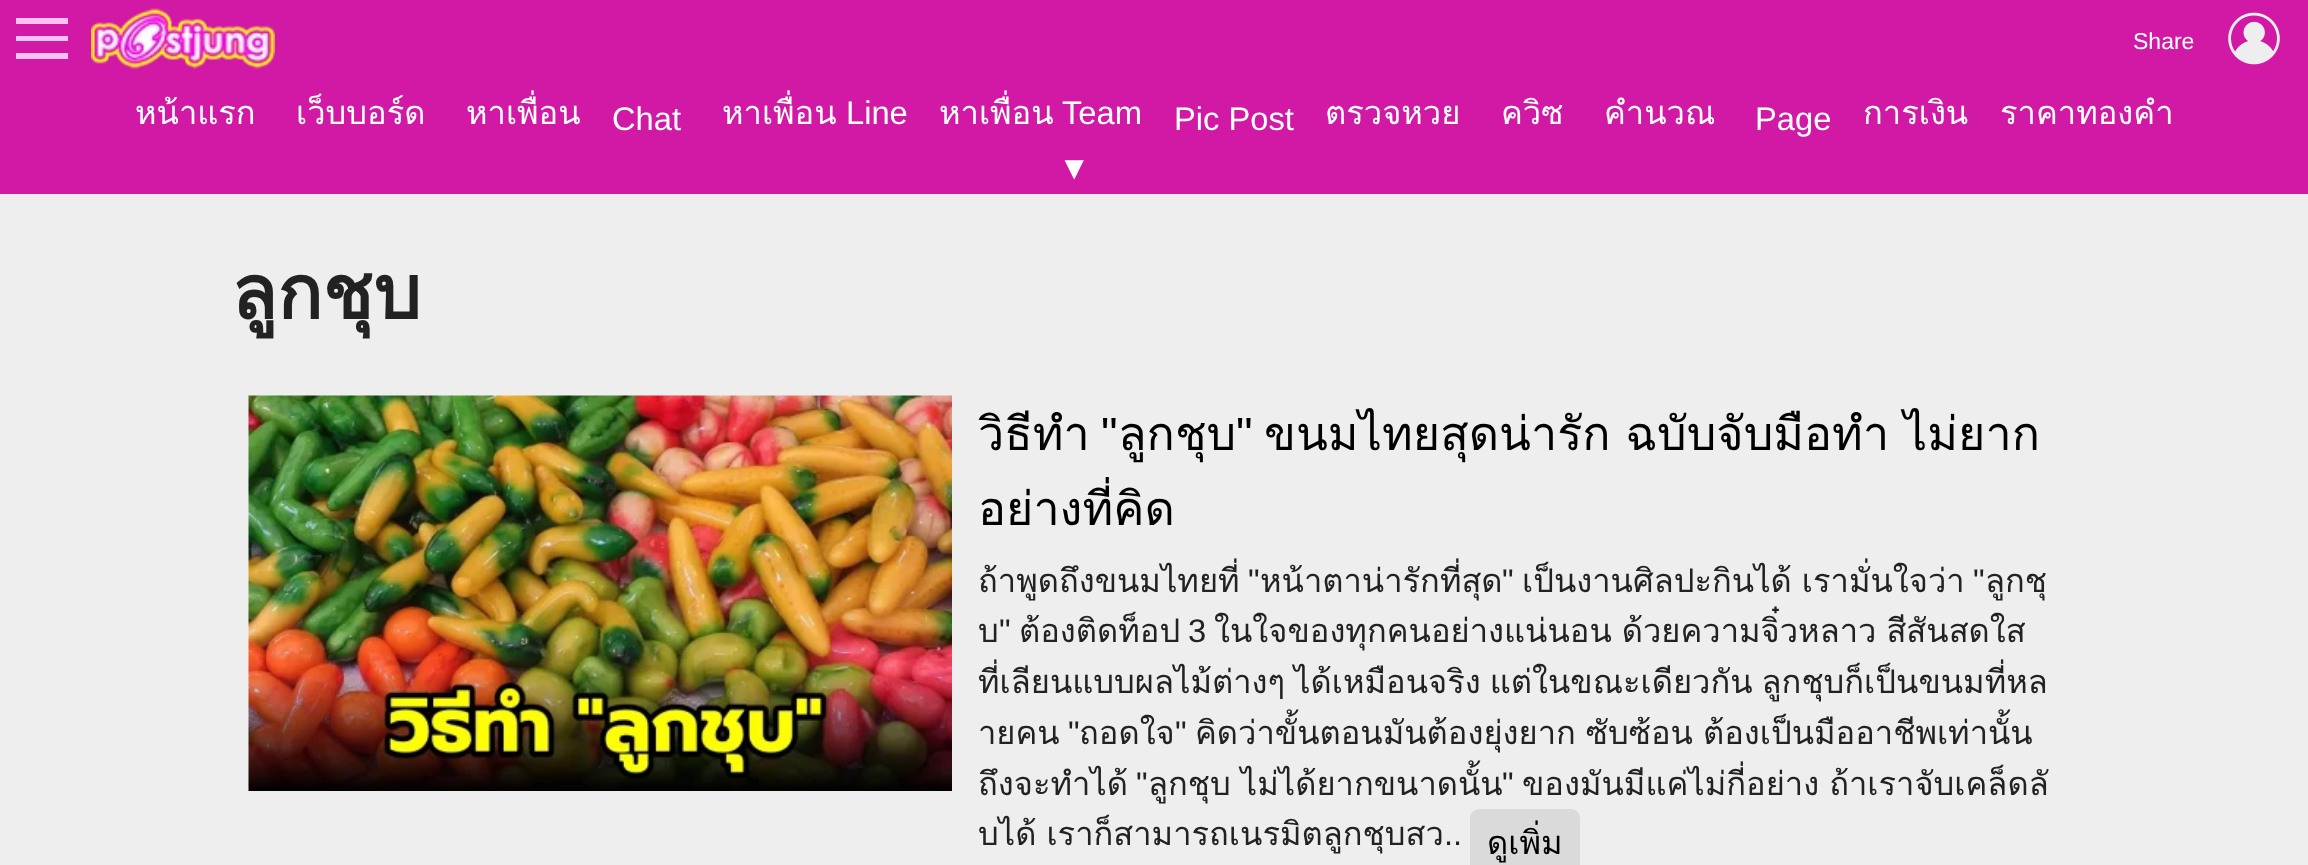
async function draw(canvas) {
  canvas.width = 2308;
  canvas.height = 865;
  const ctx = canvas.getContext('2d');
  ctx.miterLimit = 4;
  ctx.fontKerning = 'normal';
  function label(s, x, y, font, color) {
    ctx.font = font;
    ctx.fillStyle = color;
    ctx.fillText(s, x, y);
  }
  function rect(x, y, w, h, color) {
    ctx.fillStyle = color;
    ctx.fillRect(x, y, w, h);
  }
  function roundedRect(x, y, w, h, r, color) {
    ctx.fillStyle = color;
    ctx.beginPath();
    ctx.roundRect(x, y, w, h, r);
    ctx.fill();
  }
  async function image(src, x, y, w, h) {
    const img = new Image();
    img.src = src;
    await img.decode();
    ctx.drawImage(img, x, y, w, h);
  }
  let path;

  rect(0, 0, 2308, 865, '#eee');
  rect(0, 0, 2308, 194, '#d119a6');
  ctx.fillStyle = '#fdc1ef';
  path = new Path2D('M16 18V24H68V18ZM16 36V41H68V36ZM16 53V59H68V53Z');
  ctx.fill(path);
  await image('assets/img1.png', 91, 8, 184, 61);
  label('Share', 2133, 49, '23px Liberation Sans', '#fff');
  await image('assets/img2.png', 2228, 12, 52, 53);
  label('หน้าแรก', 135, 124, '32.7px Loma', '#fff');
  label('เว็บบอร์ด', 296, 124, '32.7px Loma', '#fff');
  label('หาเพื่อน', 466, 124, '32.7px Loma', '#fff');
  label('Chat', 612, 130, '32.7px Liberation Sans', '#fff');
  label('หาเพื่อน', 722, 124, '32.7px Loma', '#fff');
  label('Line', 846, 124, '32.7px Liberation Sans', '#fff');
  label('หาเพื่อน', 939, 124, '32.7px Loma', '#fff');
  label('Team', 1062, 124, '32.7px Liberation Sans', '#fff');
  label('Pic Post', 1174, 130, '32.7px Liberation Sans', '#fff');
  label('ตรวจหวย', 1325, 124, '32.7px Loma', '#fff');
  label('ควิซ', 1501, 124, '32.7px Loma', '#fff');
  label('คำนวณ', 1604, 124, '32.7px Loma', '#fff');
  label('Page', 1755, 130, '32.7px Liberation Sans', '#fff');
  label('การเงิน', 1863, 124, '32.7px Loma', '#fff');
  label('ราคาทองคำ', 2000, 124, '32.7px Loma', '#fff');
  label('▼', 1058, 179, '32.7px Liberation Sans', '#fff');
  label('ลูกชุบ', 231, 319, 'bold 75px Loma', '#222');
  await image('assets/img3.png', 248, 395, 704, 396);
  label('วิธีทำ', 978, 450, '46.7px Loma', '#000');
  label('"', 1101, 450, '46.7px Liberation Sans', '#000');
  label('"', 1236, 450, '46.7px Liberation Sans', '#000');
  ctx.wordSpacing = '-1px';
  label('ขนมไทยสุดน่ารัก ฉบับจับมือทำ ไม่ยาก', 1264, 450, '46.7px Loma', '#000');
  ctx.wordSpacing = '0px';
  label('ลูกชุบ', 1118, 450, '46.7px Loma', '#000');
  label('อย่างที่คิด', 978, 525, '46.7px Loma', '#000');
  label('ถ้าพูดถึงขนมไทยที่', 978, 592, '32.7px Loma', '#222');
  label('"', 1248, 592, '32.7px Liberation Sans', '#222');
  label('หน้าตาน่ารักที่สุด', 1260, 592, '32.7px Loma', '#222');
  label('"', 1502, 592, '32.7px Liberation Sans', '#222');
  ctx.wordSpacing = '-1px';
  label('เป็นงานศิลปะกินได้ เรามั่นใจว่า', 1522, 592, '32.7px Loma', '#222');
  ctx.wordSpacing = '0px';
  label('"', 1973, 592, '32.7px Liberation Sans', '#222');
  label('ลูกชุ', 1985, 592, '32.7px Loma', '#222');
  label('"', 999, 642, '32.7px Liberation Sans', '#222');
  label('ต้องติดท็อป', 1019, 642, '32.7px Loma', '#222');
  ctx.wordSpacing = '-1px';
  label('ในใจของทุกคนอย่างแน่นอน ด้วยความจิ๋วหลาว สีสันสดใส', 1214, 642, '32.7px Loma', '#222');
  ctx.wordSpacing = '0px';
  label('บ', 978, 642, '32.7px Loma', '#222');
  label('3', 1188, 642, '32.7px Liberation Sans', '#222');
  ctx.wordSpacing = '-2px';
  label('ที่เลียนแบบผลไม้ต่างๆ ได้เหมือนจริง แต่ในขณะเดียวกัน ลูกชุบก็เป็นขนมที่หล', 978, 693, '32.7px Loma', '#222');
  ctx.wordSpacing = '0px';
  label('"', 1068, 744, '32.7px Liberation Sans', '#222');
  label('ถอดใจ', 1079, 744, '32.7px Loma', '#222');
  label('"', 1175, 744, '32.7px Liberation Sans', '#222');
  ctx.wordSpacing = '-1px';
  label('คิดว่าขั้นตอนมันต้องยุ่งยาก ซับซ้อน ต้องเป็นมืออาชีพเท่านั้น', 1195, 744, '32.7px Loma', '#222');
  ctx.wordSpacing = '0px';
  label('ายคน', 978, 744, '32.7px Loma', '#222');
  label('ถึงจะทำได้', 978, 795, '32.7px Loma', '#222');
  label('"', 1136, 795, '32.7px Liberation Sans', '#222');
  ctx.wordSpacing = '-1px';
  label('ลูกชุบ ไม่ได้ยากขนาดนั้น', 1148, 795, '32.7px Loma', '#222');
  label('ของมันมีแค่ไม่กี่อย่าง ถ้าเราจับเคล็ดลั', 1522, 795, '32.7px Loma', '#222');
  ctx.wordSpacing = '0px';
  label('"', 1502, 795, '32.7px Liberation Sans', '#222');
  ctx.wordSpacing = '-1px';
  label('บได้ เราก็สามารถเนรมิตลูกชุบสว', 978, 845, '32.7px Loma', '#222');
  ctx.wordSpacing = '0px';
  label('..', 1444, 845, '32.7px Liberation Sans', '#222');
  roundedRect(1470, 809, 110, 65, 9, '#dadada');
  label('ดูเพิ่ม', 1487, 854, '32.7px Loma', '#000');
}

draw(document.querySelector('canvas'));
